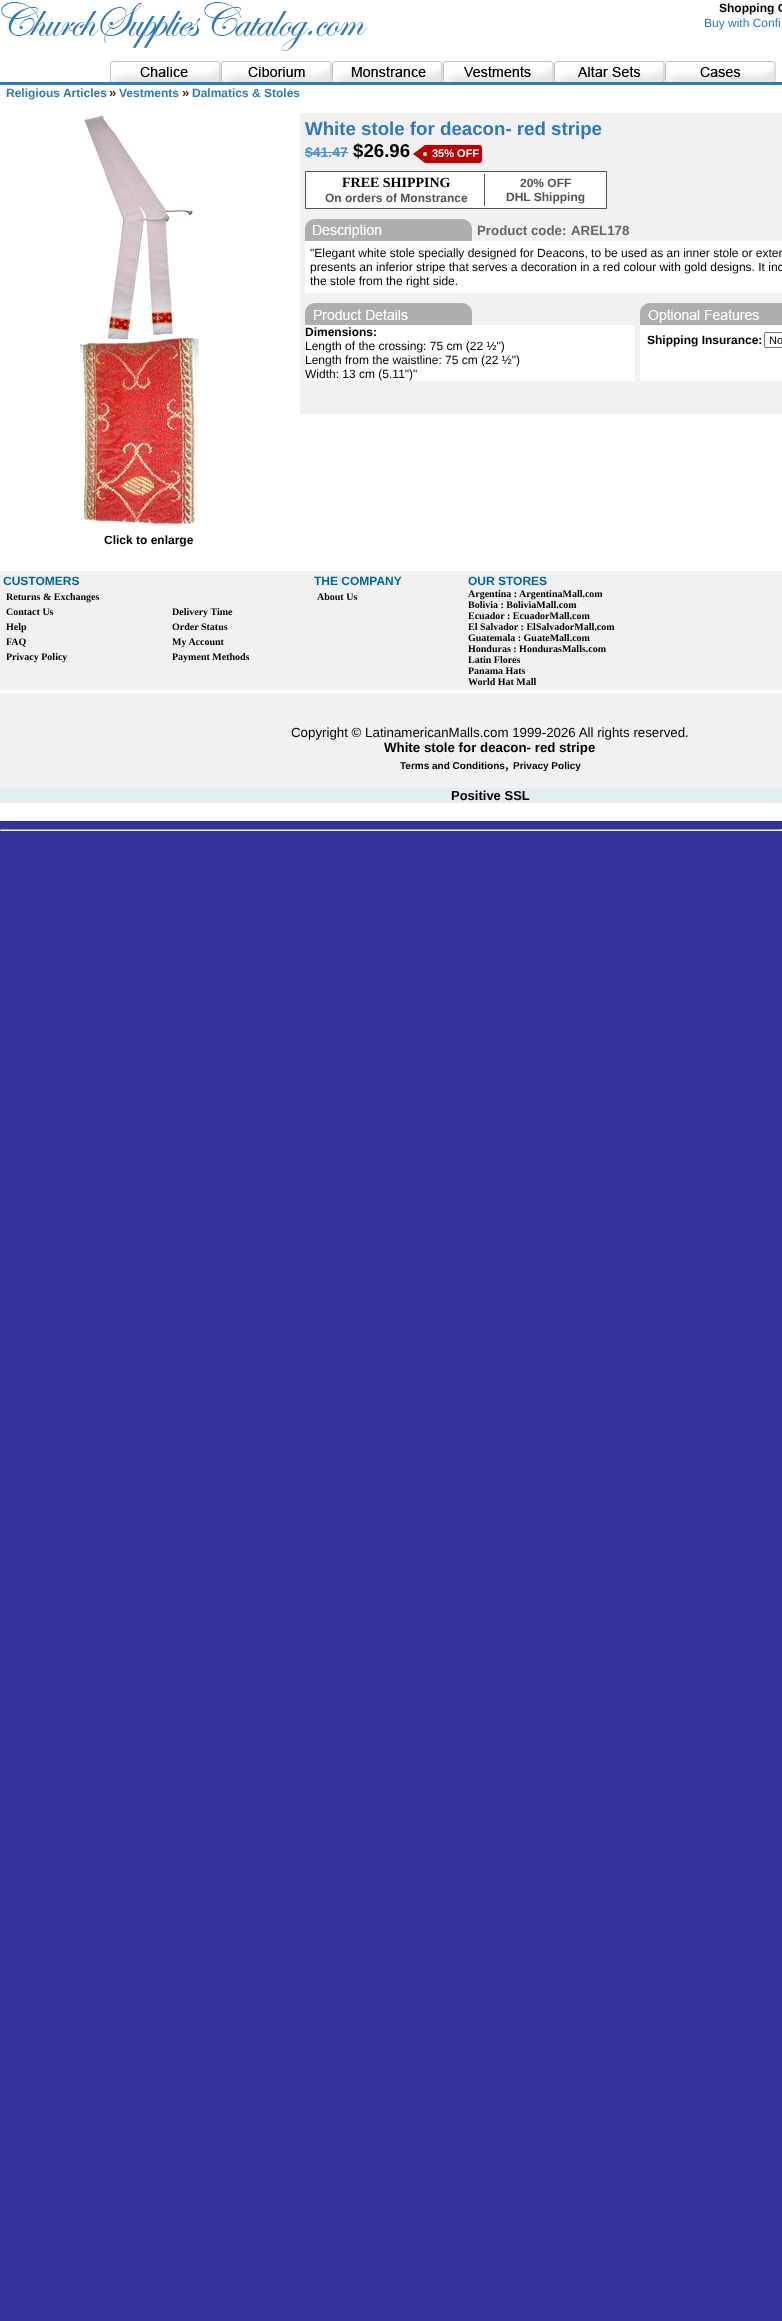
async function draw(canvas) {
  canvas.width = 782;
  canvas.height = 2321;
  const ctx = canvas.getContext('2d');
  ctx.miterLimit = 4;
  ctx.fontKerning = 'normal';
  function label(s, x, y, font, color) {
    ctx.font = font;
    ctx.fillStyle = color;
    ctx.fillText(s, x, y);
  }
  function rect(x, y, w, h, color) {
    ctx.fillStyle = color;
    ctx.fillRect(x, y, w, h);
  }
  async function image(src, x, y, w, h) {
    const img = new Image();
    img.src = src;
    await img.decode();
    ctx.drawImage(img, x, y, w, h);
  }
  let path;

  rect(0, 0, 782, 2321, '#339');
  rect(0, 0, 782, 821, '#fff');
  await image('assets/img1.png', 1, 2, 367, 49);
  label('Shopping C', 719, 12, 'bold 12px Liberation Sans', '#000');
  label('Buy with Confi', 704, 27, '12px Liberation Sans', '#2d78bf');
  await image('assets/img2.png', 110, 61, 111, 21);
  await image('assets/img3.png', 221, 61, 111, 21);
  await image('assets/img4.png', 332, 61, 111, 21);
  await image('assets/img5.png', 443, 61, 111, 21);
  await image('assets/img6.png', 554, 61, 111, 21);
  await image('assets/img7.png', 665, 61, 111, 21);
  rect(0, 82, 782, 3, '#3279b8');
  label('Religious Articles', 6, 97, 'bold 12px Liberation Sans', '#3279b8');
  label('»', 109, 97, 'bold 13px Liberation Sans', '#562401');
  label('Vestments', 119, 97, 'bold 12px Liberation Sans', '#3279b8');
  label('»', 182, 97, 'bold 13px Liberation Sans', '#562401');
  label('Dalmatics & Stoles', 192, 97, 'bold 12px Liberation Sans', '#3279b8');
  rect(300, 113, 482, 301, '#f1f1f1');
  label('White stole for deacon- red stripe', 305, 135, 'bold 18.7px Liberation Sans', '#2d78bf');
  label('$41.47', 305, 157, 'bold 14px Liberation Sans', '#4191d3');
  rect(305, 152, 43, 1, '#4191d3');
  label('$26.96', 353, 157, 'bold 18.7px Liberation Sans', '#000');
  ctx.fillStyle = '#00000033';
  ctx.filter = 'blur(1px)';
  ctx.beginPath();
  ctx.roundRect(425, 146, 57, 18, 3);
  ctx.fill();
  ctx.filter = 'none';
  ctx.fillStyle = '#bb0202';
  ctx.beginPath();
  ctx.roundRect(425, 145, 57, 18, [0, 3, 3, 0]);
  ctx.fill();
  path = new Path2D('M425 145V163L413 154Z');
  ctx.fill(path);
  ctx.fillStyle = '#00000066';
  ctx.filter = 'blur(1px)';
  ctx.beginPath();
  ctx.roundRect(422, 151, 4, 4, 2);
  ctx.fill();
  ctx.filter = 'none';
  ctx.fillStyle = '#fff';
  ctx.beginPath();
  ctx.arc(425, 154, 2, 0, 2 * Math.PI);
  ctx.fill();
  label('35% OFF', 432, 157, 'bold 11px Liberation Sans', '#fff');
  ctx.beginPath();
  ctx.rect(305.5, 171.5, 301, 37);
  ctx.fill();
  ctx.strokeStyle = '#535353';
  ctx.stroke();
  rect(484, 174, 1, 32, '#535353');
  label('FREE SHIPPING', 342, 187, 'bold 14px Liberation Serif', '#000');
  label('On orders of Monstrance', 325, 202, 'bold 12px Liberation Sans', '#535353');
  label('20% OFF', 520, 187, 'bold 12px Liberation Sans', '#535353');
  label('DHL Shipping', 506, 201, 'bold 12px Liberation Sans', '#535353');
  await image('assets/img8.png', 305, 219, 167, 22);
  label('Product code:', 477, 235, 'bold 13.3px Liberation Sans', '#666');
  label('AREL178', 571, 235, 'bold 13.3px Liberation Sans', '#666');
  rect(305, 241, 477, 52, '#fff');
  label('"Elegant white stole specially designed for Deacons, to be used as an inner stole or exter', 310, 257, '12px Liberation Sans', '#000');
  label('presents an inferior stripe that serves a decoration in a red colour with gold designs. It inc', 310, 271, '12px Liberation Sans', '#000');
  label('the stole from the right side.', 310, 285, '12px Liberation Sans', '#000');
  await image('assets/img9.png', 305, 303, 167, 22);
  await image('assets/img10.png', 640, 303, 142, 22);
  rect(305, 325, 477, 56, '#fff');
  label('Dimensions:', 305, 336, 'bold 12px Liberation Sans', '#000');
  label('Length of the crossing: 75 cm (22 ½")', 305, 350, '12px Liberation Sans', '#000');
  label('Length from the waistline: 75 cm (22 ½")', 305, 364, '12px Liberation Sans', '#000');
  label('Width: 13 cm (5.11")"', 305, 378, '12px Liberation Sans', '#000');
  rect(635, 325, 5, 56, '#f1f1f1');
  label('Shipping Insurance:', 647, 344, 'bold 12px Liberation Sans', '#000');
  ctx.beginPath();
  ctx.roundRect(764.5, 332.5, 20, 15, 1.5);
  ctx.strokeStyle = '#767676';
  ctx.stroke();
  label('No', 769, 344, '11px Liberation Sans', '#000');
  await image('assets/img11.png', 80, 115, 119, 411);
  label('Click to enlarge', 104, 544, 'bold 12px Liberation Sans', '#000');
  rect(0, 571, 782, 217, '#f1f1f1');
  label('CUSTOMERS', 3, 585, 'bold 12px Liberation Sans', '#069');
  label('Returns & Exchanges', 6, 600, 'bold 10px Liberation Serif', '#000');
  label('Contact Us', 6, 615, 'bold 10px Liberation Serif', '#000');
  label('Delivery Time', 172, 615, 'bold 10px Liberation Serif', '#000');
  label('Help', 6, 630, 'bold 10px Liberation Serif', '#000');
  label('Order Status', 172, 630, 'bold 10px Liberation Serif', '#000');
  label('FAQ', 6, 645, 'bold 10px Liberation Serif', '#000');
  label('My Account', 172, 645, 'bold 10px Liberation Serif', '#000');
  label('Privacy Policy', 6, 660, 'bold 10px Liberation Serif', '#000');
  label('Payment Methods', 172, 660, 'bold 10px Liberation Serif', '#000');
  label('THE COMPANY', 314, 585, 'bold 12px Liberation Sans', '#069');
  label('About Us', 317, 600, 'bold 10px Liberation Serif', '#000');
  label('OUR STORES', 468, 585, 'bold 12px Liberation Sans', '#069');
  label('Argentina : ArgentinaMall.com', 468, 597, 'bold 10px Liberation Serif', '#000');
  label('Bolivia : BoliviaMall.com', 468, 608, 'bold 10px Liberation Serif', '#000');
  label('Ecuador : EcuadorMall.com', 468, 619, 'bold 10px Liberation Serif', '#000');
  label('El Salvador : ElSalvadorMall.com', 468, 630, 'bold 10px Liberation Serif', '#000');
  label('Guatemala : GuateMall.com', 468, 641, 'bold 10px Liberation Serif', '#000');
  label('Honduras : HondurasMalls.com', 468, 652, 'bold 10px Liberation Serif', '#000');
  label('Latin Flores', 468, 663, 'bold 10px Liberation Serif', '#000');
  label('Panama Hats', 468, 674, 'bold 10px Liberation Serif', '#000');
  label('World Hat Mall', 468, 685, 'bold 10px Liberation Serif', '#000');
  rect(0, 690, 782, 3, '#fff');
  rect(0, 788, 782, 15, '#e4edef');
  label('Copyright © LatinamericanMalls.com 1999-2026 All rights reserved.', 291, 737, '13.3px Liberation Sans', '#000');
  label('White stole for deacon- red stripe', 384, 752, 'bold 13.3px Liberation Sans', '#000');
  label('Terms and Conditions', 400, 769, 'bold 10px Liberation Sans', '#000');
  label(',', 505, 769, '16px Liberation Serif', '#000');
  label('Privacy Policy', 513, 769, 'bold 10px Liberation Sans', '#000');
  label('Positive SSL', 451, 800, 'bold 13px Liberation Sans', '#000');
  rect(0, 829, 782, 1, '#9f9f9f');
  rect(781, 829, 1, 2, '#eee');
  rect(0, 830, 782, 1, '#eee');
  rect(0, 829, 1, 2, '#9f9f9f');
}

draw(document.querySelector('canvas'));
